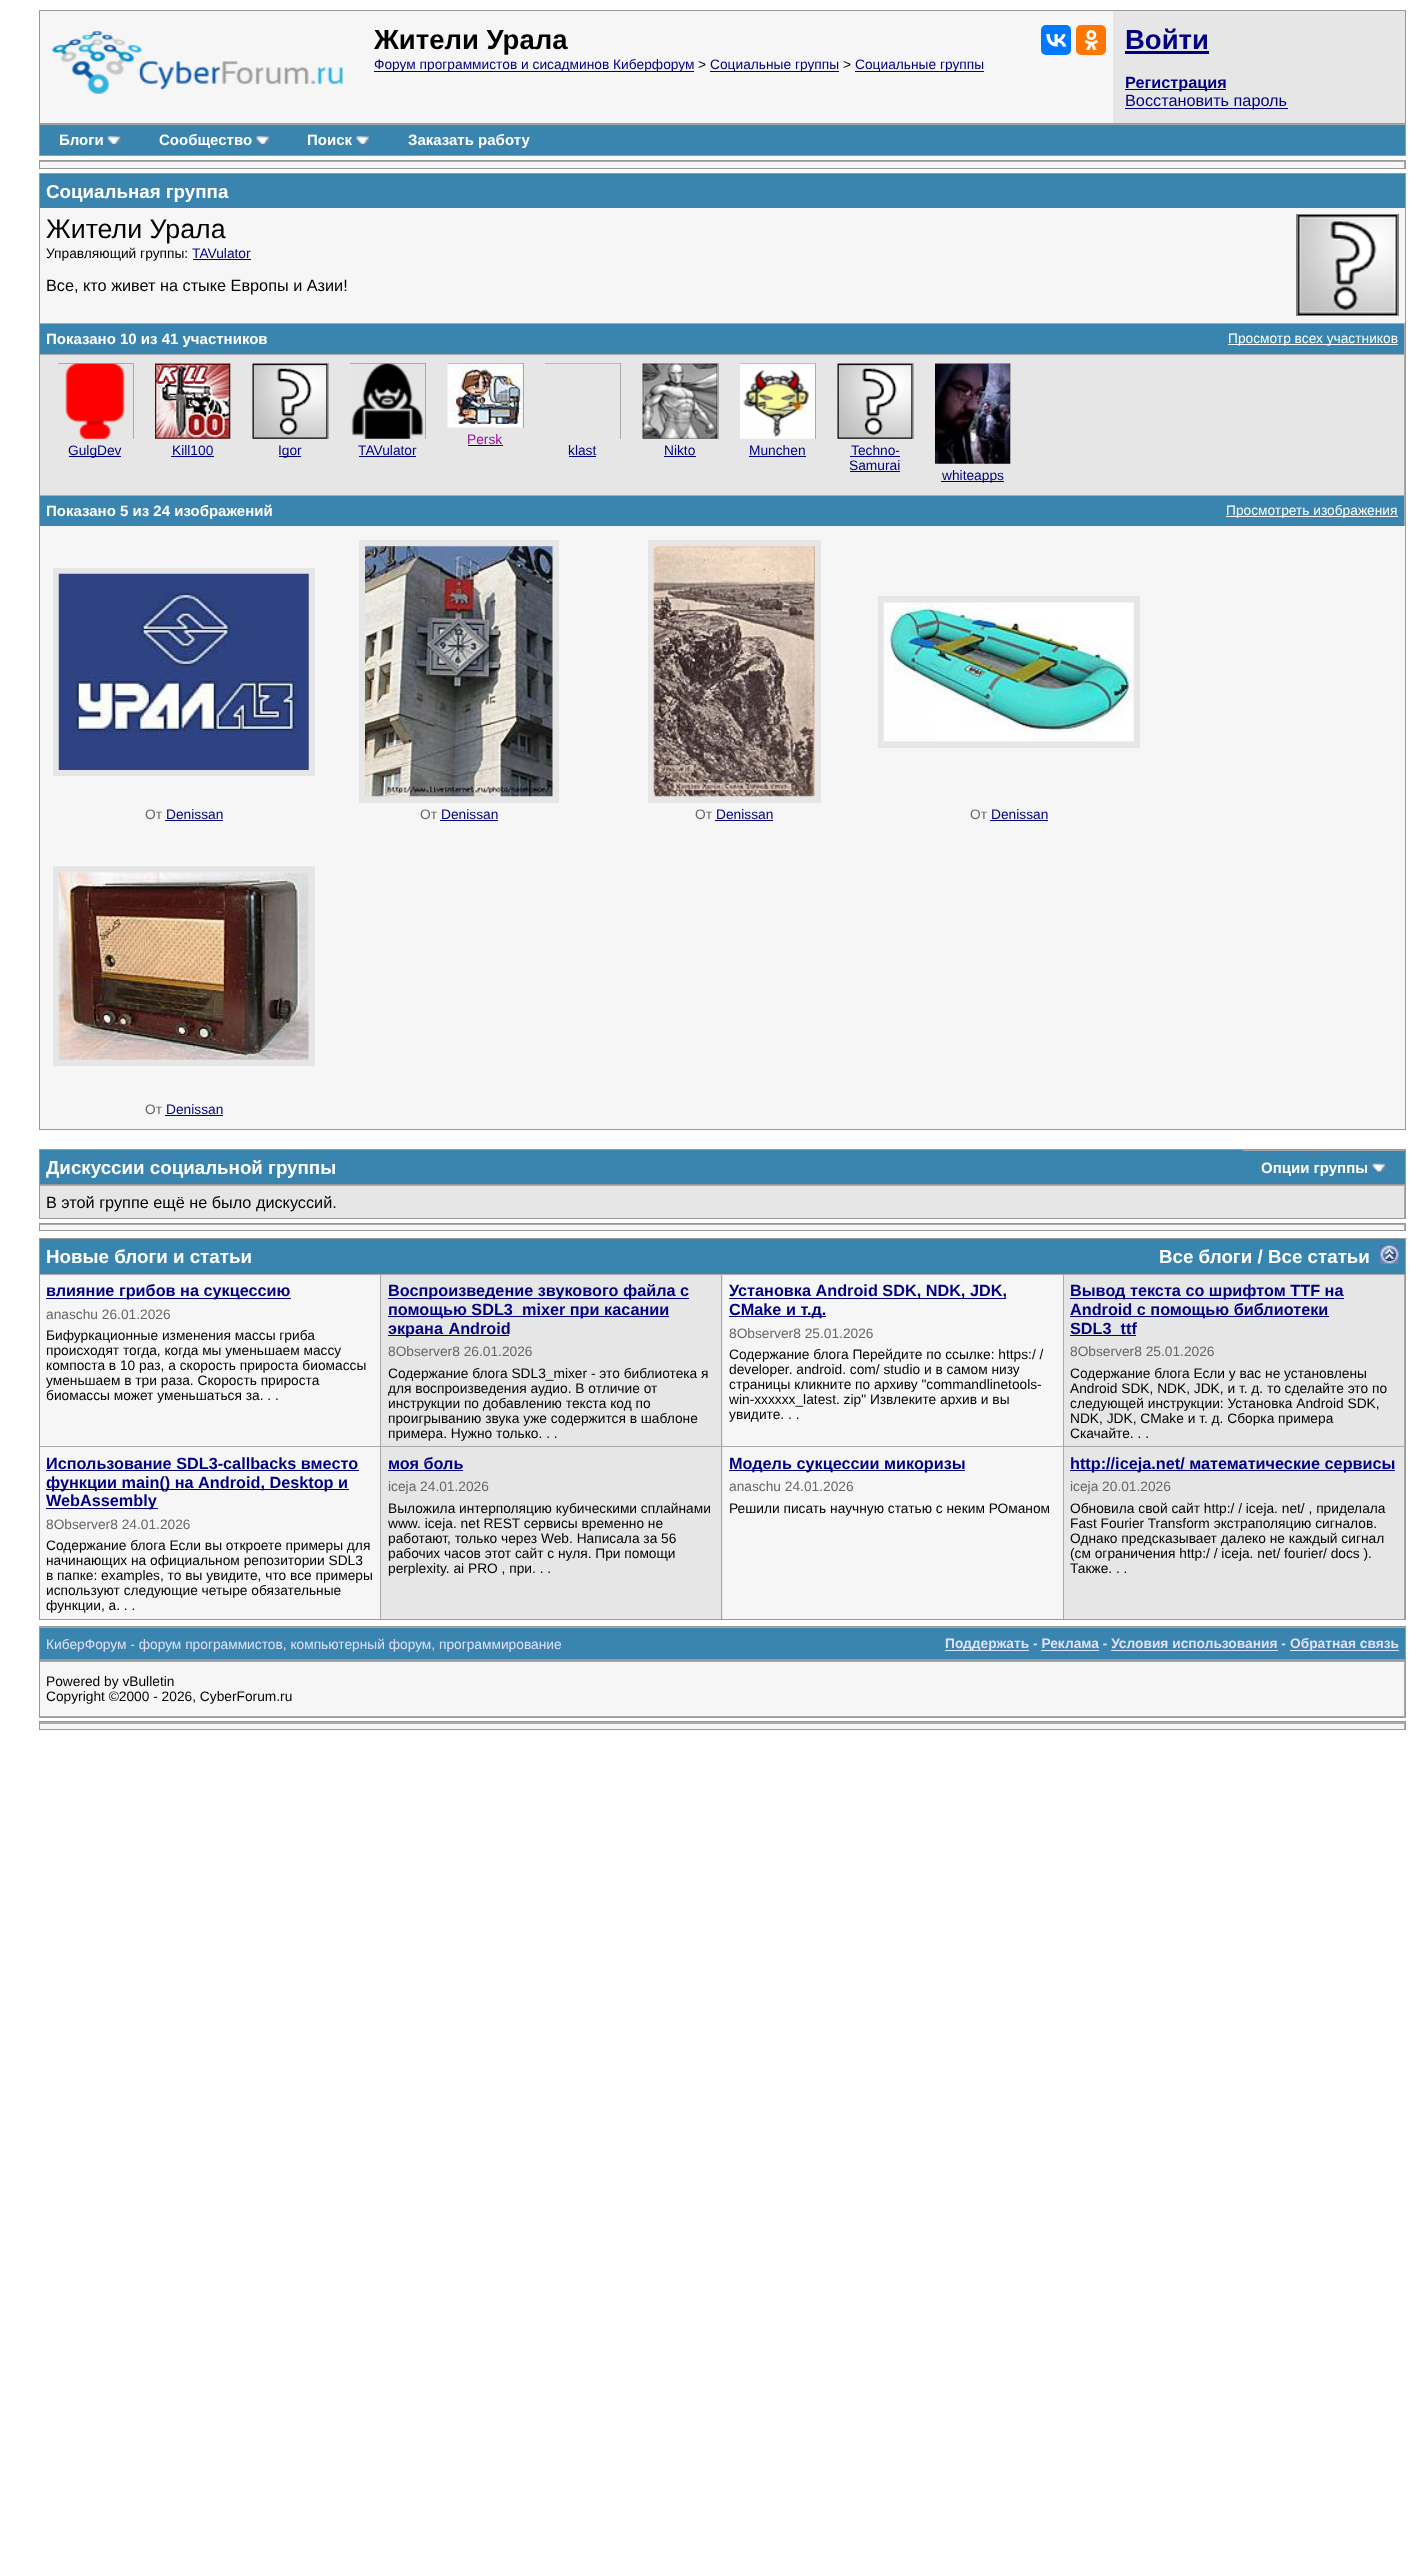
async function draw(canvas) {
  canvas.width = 1421;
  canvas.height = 2552;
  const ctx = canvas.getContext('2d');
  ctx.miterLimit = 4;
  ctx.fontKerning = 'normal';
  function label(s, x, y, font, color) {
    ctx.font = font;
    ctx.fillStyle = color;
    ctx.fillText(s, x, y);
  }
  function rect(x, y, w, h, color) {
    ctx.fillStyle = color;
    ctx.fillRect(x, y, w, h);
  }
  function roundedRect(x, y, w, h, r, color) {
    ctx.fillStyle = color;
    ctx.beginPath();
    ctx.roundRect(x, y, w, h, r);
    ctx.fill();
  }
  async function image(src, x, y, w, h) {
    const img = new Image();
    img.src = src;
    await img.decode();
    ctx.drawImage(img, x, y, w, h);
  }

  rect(0, 0, 1421, 2552, '#fff');
  ctx.strokeStyle = '#999';
  ctx.strokeRect(39.5, 10.5, 1366, 113);
  rect(40, 11, 1073, 112, '#f6f6f6');
  await image('assets/img1.png', 52, 31, 291, 63);
  label('Жители Урала', 374, 49, 'bold 27.5px Liberation Sans', '#000');
  roundedRect(1041, 25, 30, 30, 5, '#07f');
  await image('assets/img2.png', 1046, 34, 21, 13);
  roundedRect(1076, 25, 30, 30, 5, '#f70');
  await image('assets/img3.png', 1084, 30, 14, 20);
  rect(374, 71, 320, 1, '#000080');
  label('Форум программистов и сисадминов Киберфорум', 374, 69, '13.75px Liberation Sans', '#000080');
  label('>', 698, 69, '13.75px Liberation Sans', '#000');
  rect(710, 71, 129, 1, '#000080');
  label('Социальные группы', 710, 69, '13.75px Liberation Sans', '#000080');
  label('>', 843, 69, '13.75px Liberation Sans', '#000');
  rect(855, 71, 129, 1, '#000080');
  label('Социальные группы', 855, 69, '13.75px Liberation Sans', '#000080');
  rect(1113, 11, 292, 112, '#e6e6e6');
  label('Войти', 1125, 49, 'bold 27.5px Liberation Sans', '#000080');
  rect(1125, 51, 84, 3, '#000080');
  rect(1125, 89, 101, 1, '#000080');
  label('Регистрация', 1125, 88, 'bold 16.25px Liberation Sans', '#000080');
  rect(1125, 108, 163, 1, '#000080');
  label('Восстановить пароль', 1125, 106, '16.25px Liberation Sans', '#000080');
  rect(1405, 124, 1, 32, '#999');
  rect(39, 155, 1367, 1, '#999');
  rect(39, 124, 1, 32, '#999');
  rect(40, 125, 1365, 30, '#3a85af');
  rect(40, 124, 1365, 1, '#aaa');
  label('Блоги', 59, 145, 'bold 15px Liberation Sans', '#fff');
  await image('assets/img4.png', 107, 136, 15, 9);
  label('Сообщество', 159, 145, 'bold 15px Liberation Sans', '#fff');
  await image('assets/img5.png', 256, 136, 14, 9);
  label('Поиск', 307, 145, 'bold 15px Liberation Sans', '#fff');
  await image('assets/img6.png', 356, 136, 14, 9);
  label('Заказать работу', 408, 145, 'bold 15px Liberation Sans', '#fff');
  ctx.strokeRect(39.5, 160.5, 1366, 8);
  rect(40, 162, 1365, 6, '#f6f6f6');
  rect(40, 161, 1365, 1, '#aaa');
  rect(1404, 161, 1, 7, '#aaa');
  ctx.strokeRect(39.5, 173.5, 1366, 956);
  rect(40, 174, 1365, 34, '#3a85af');
  label('Социальная группа', 46, 198, 'bold 18.75px Liberation Sans', '#fff');
  rect(40, 208, 1365, 115, '#f6f6f6');
  label('Жители Урала', 46, 238, '26.75px Liberation Sans', '#000');
  ctx.strokeStyle = '#808080';
  ctx.strokeRect(1296.5, 214.5, 102, 101);
  await image('assets/img7.png', 1297, 215, 101, 100);
  label('Управляющий группы:', 46, 258, '13.75px Liberation Sans', '#000');
  label('TAVulator', 192, 258, '13.75px Liberation Sans', '#000080');
  rect(193, 259, 58, 1, '#000080');
  label('Все, кто живет на стыке Европы и Азии!', 46, 291, '16.25px Liberation Sans', '#000');
  rect(40, 324, 1364, 30, '#3a85af');
  rect(40, 323, 1365, 1, '#aaa');
  rect(1404, 323, 1, 31, '#aaa');
  label('Показано 10 из 41 участников', 46, 344, 'bold 15px Liberation Sans', '#fff');
  rect(1228, 344, 170, 1, '#fff');
  label('Просмотр всех участников', 1228, 343, '13.75px Liberation Sans', '#fff');
  rect(40, 355, 1364, 140, '#e6e6e6');
  rect(40, 354, 1365, 1, '#aaa');
  rect(1404, 354, 1, 141, '#aaa');
  rect(448, 363, 76, 1, '#aaa');
  await image('assets/img8.png', 447, 363, 76, 65);
  rect(523, 363, 1, 65, '#aaa');
  label('Persk', 467, 444, '13.75px Liberation Sans', '#919');
  rect(468, 445, 35, 1, '#000080');
  rect(58, 363, 76, 1, '#aaa');
  await image('assets/img9.png', 65, 363, 60, 76);
  rect(133, 363, 1, 76, '#aaa');
  rect(69, 456, 52, 1, '#000080');
  label('GulgDev', 68, 455, '13.75px Liberation Sans', '#000080');
  rect(155, 363, 76, 1, '#aaa');
  await image('assets/img10.png', 155, 363, 75, 76);
  rect(230, 363, 1, 76, '#aaa');
  label('Kill100', 172, 455, '13.75px Liberation Sans', '#000080');
  rect(171, 456, 43, 1, '#000080');
  rect(253, 363, 76, 1, '#aaa');
  await image('assets/img11.png', 252, 363, 76, 76);
  rect(328, 363, 1, 76, '#aaa');
  rect(279, 456, 22, 1, '#000080');
  label('Igor', 278, 455, '13.75px Liberation Sans', '#000080');
  rect(350, 363, 76, 1, '#aaa');
  await image('assets/img12.png', 351, 363, 73, 76);
  rect(425, 363, 1, 76, '#aaa');
  label('TAVulator', 358, 455, '13.75px Liberation Sans', '#000080');
  rect(359, 456, 57, 1, '#000080');
  rect(545, 363, 75, 1, '#b8b8b8');
  rect(620, 363, 1, 76, '#aaa');
  label('klast', 568, 455, '13.75px Liberation Sans', '#000080');
  rect(569, 456, 27, 1, '#000080');
  rect(643, 363, 76, 1, '#aaa');
  await image('assets/img13.png', 642, 363, 76, 76);
  rect(718, 363, 1, 76, '#aaa');
  label('Nikto', 664, 455, '13.75px Liberation Sans', '#000080');
  rect(664, 456, 32, 1, '#000080');
  rect(740, 363, 76, 1, '#aaa');
  await image('assets/img14.png', 740, 363, 75, 76);
  rect(815, 363, 1, 76, '#aaa');
  label('Munchen', 749, 455, '13.75px Liberation Sans', '#000080');
  rect(749, 456, 57, 1, '#000080');
  rect(838, 363, 76, 1, '#aaa');
  await image('assets/img15.png', 837, 363, 76, 76);
  rect(913, 363, 1, 76, '#aaa');
  label('Techno-', 851, 455, '13.75px Liberation Sans', '#000080');
  rect(850, 456, 50, 1, '#000080');
  label('Samurai', 849, 470, '13.75px Liberation Sans', '#000080');
  rect(850, 471, 50, 1, '#000080');
  rect(935, 363, 76, 1, '#aaa');
  await image('assets/img16.png', 935, 363, 75, 101);
  rect(1010, 363, 1, 101, '#aaa');
  rect(941, 481, 63, 1, '#000080');
  label('whiteapps', 942, 480, '13.75px Liberation Sans', '#000080');
  rect(40, 496, 1364, 30, '#3a85af');
  rect(40, 495, 1365, 1, '#aaa');
  rect(1404, 495, 1, 31, '#aaa');
  label('Показано 5 из 24 изображений', 46, 516, 'bold 15px Liberation Sans', '#fff');
  rect(1226, 516, 172, 1, '#fff');
  label('Просмотреть изображения', 1226, 515, '13.75px Liberation Sans', '#fff');
  rect(40, 526, 1365, 603, '#f6f6f6');
  rect(53, 568, 262, 208, '#e6e6e6');
  await image('assets/img17.png', 58, 573, 251, 197);
  label('От', 145, 819, '13.75px Liberation Sans', '#666');
  label('Denissan', 166, 819, '13.75px Liberation Sans', '#000080');
  rect(165, 820, 58, 1, '#000080');
  rect(359, 540, 200, 263, '#e6e6e6');
  await image('assets/img18.png', 365, 546, 188, 251);
  label('От', 420, 819, '13.75px Liberation Sans', '#666');
  label('Denissan', 441, 819, '13.75px Liberation Sans', '#000080');
  rect(440, 820, 58, 1, '#000080');
  rect(648, 540, 173, 263, '#e6e6e6');
  await image('assets/img19.png', 653, 546, 162, 251);
  label('От', 695, 819, '13.75px Liberation Sans', '#666');
  label('Denissan', 716, 819, '13.75px Liberation Sans', '#000080');
  rect(715, 820, 58, 1, '#000080');
  rect(878, 596, 262, 152, '#e6e6e6');
  await image('assets/img20.png', 883, 602, 251, 140);
  label('От', 970, 819, '13.75px Liberation Sans', '#666');
  label('Denissan', 991, 819, '13.75px Liberation Sans', '#000080');
  rect(990, 820, 58, 1, '#000080');
  rect(53, 866, 262, 200, '#e6e6e6');
  await image('assets/img21.png', 58, 872, 251, 188);
  label('От', 145, 1114, '13.75px Liberation Sans', '#666');
  label('Denissan', 166, 1114, '13.75px Liberation Sans', '#000080');
  rect(165, 1115, 58, 1, '#000080');
  rect(39, 1149, 1367, 1, '#999');
  rect(1405, 1149, 1, 35, '#999');
  rect(39, 1149, 1, 35, '#999');
  rect(40, 1150, 1203, 34, '#3a85af');
  label('Дискуссии социальной группы', 46, 1174, 'bold 18.75px Liberation Sans', '#fff');
  rect(1243, 1151, 162, 33, '#3a85af');
  rect(1243, 1150, 162, 1, '#aaa');
  label('Опции группы', 1261, 1173, 'bold 15px Liberation Sans', '#fff');
  await image('assets/img22.png', 1372, 1163, 15, 10);
  ctx.strokeStyle = '#999';
  ctx.strokeRect(39.5, 1184.5, 1366, 34);
  rect(40, 1186, 1364, 32, '#e6e6e6');
  rect(40, 1185, 1365, 1, '#aaa');
  rect(1404, 1185, 1, 33, '#aaa');
  label('В этой группе ещё не было дискуссий.', 46, 1208, '16.25px Liberation Sans', '#000');
  ctx.strokeRect(39.5, 1223.5, 1366, 7);
  rect(40, 1225, 1365, 5, '#f6f6f6');
  rect(40, 1224, 1365, 1, '#aaa');
  rect(1404, 1224, 1, 6, '#aaa');
  ctx.strokeRect(39.5, 1238.5, 1366, 381);
  rect(40, 1239, 1365, 35, '#3a85af');
  label('Новые блоги и статьи', 46, 1263, 'bold 18.75px Liberation Sans', '#fff');
  label('Все блоги /', 1159, 1263, 'bold 18.75px Liberation Sans', '#fff');
  label('Все статьи', 1268, 1263, 'bold 18.75px Liberation Sans', '#fff');
  await image('assets/img23.png', 1380, 1245, 19, 19);
  rect(40, 1275, 340, 171, '#f6f6f6');
  rect(40, 1274, 1365, 1, '#aaa');
  rect(380, 1274, 1, 172, '#aaa');
  rect(46, 1298, 245, 1, '#000080');
  label('влияние грибов на сукцессию', 46, 1296, 'bold 16.25px Liberation Sans', '#000080');
  label('anaschu 26.01.2026', 46, 1319, '13.75px Liberation Sans', '#666');
  label('Бифуркационные изменения массы гриба', 46, 1340, '13.75px Liberation Sans', '#000');
  label('происходят тогда, когда мы уменьшаем массу', 46, 1355, '13.75px Liberation Sans', '#000');
  label('компоста в 10 раз, а скорость прироста биомассы', 46, 1370, '13.75px Liberation Sans', '#000');
  label('уменьшаем в три раза. Скорость прироста', 46, 1385, '13.75px Liberation Sans', '#000');
  label('биомассы может уменьшаться за. . .', 46, 1400, '13.75px Liberation Sans', '#000');
  rect(381, 1275, 342, 171, '#e6e6e6');
  rect(721, 1274, 1, 172, '#aaa');
  rect(388, 1298, 301, 1, '#000080');
  label('Воспроизведение звукового файла с', 388, 1296, 'bold 16.25px Liberation Sans', '#000080');
  rect(388, 1316, 281, 1, '#000080');
  label('помощью SDL3_mixer при касании', 388, 1315, 'bold 16.25px Liberation Sans', '#000080');
  rect(388, 1335, 121, 1, '#000080');
  ctx.wordSpacing = '1px';
  label('экрана Android', 388, 1334, 'bold 16.25px Liberation Sans', '#000080');
  ctx.wordSpacing = '0px';
  label('8Observer8 26.01.2026', 388, 1356, '13.75px Liberation Sans', '#666');
  label('Содержание блога SDL3_mixer - это библиотека я', 388, 1378, '13.75px Liberation Sans', '#000');
  label('для воспроизведения аудио. В отличие от', 388, 1393, '13.75px Liberation Sans', '#000');
  label('инструкции по добавлению текста код по', 388, 1408, '13.75px Liberation Sans', '#000');
  label('проигрыванию звука уже содержится в шаблоне', 388, 1423, '13.75px Liberation Sans', '#000');
  label('примера. Нужно только. . .', 388, 1438, '13.75px Liberation Sans', '#000');
  rect(723, 1275, 340, 171, '#f6f6f6');
  rect(1063, 1274, 1, 172, '#aaa');
  rect(729, 1298, 277, 1, '#000080');
  label('Установка Android SDK, NDK, JDK,', 729, 1296, 'bold 16.25px Liberation Sans', '#000080');
  rect(729, 1316, 97, 1, '#000080');
  label('CMake и т.д.', 729, 1315, 'bold 16.25px Liberation Sans', '#000080');
  label('8Observer8 25.01.2026', 729, 1338, '13.75px Liberation Sans', '#666');
  label('Содержание блога Перейдите по ссылке: https:/ /', 729, 1359, '13.75px Liberation Sans', '#000');
  label('developer. android. com/ studio и в самом низу', 729, 1374, '13.75px Liberation Sans', '#000');
  label('страницы кликните по архиву "commandlinetools-', 729, 1389, '13.75px Liberation Sans', '#000');
  label('win-xxxxxx_latest. zip" Извлеките архив и вы', 729, 1404, '13.75px Liberation Sans', '#000');
  label('увидите. . .', 729, 1419, '13.75px Liberation Sans', '#000');
  rect(1064, 1275, 340, 171, '#e6e6e6');
  rect(1404, 1274, 1, 172, '#aaa');
  rect(1070, 1298, 274, 1, '#000080');
  label('Вывод текста со шрифтом TTF на', 1070, 1296, 'bold 16.25px Liberation Sans', '#000080');
  rect(1070, 1316, 259, 1, '#000080');
  label('Android с помощью библиотеки', 1070, 1315, 'bold 16.25px Liberation Sans', '#000080');
  rect(1070, 1335, 66, 1, '#000080');
  label('SDL3_ttf', 1070, 1334, 'bold 16.25px Liberation Sans', '#000080');
  label('8Observer8 25.01.2026', 1070, 1356, '13.75px Liberation Sans', '#666');
  label('Содержание блога Если у вас не установлены', 1070, 1378, '13.75px Liberation Sans', '#000');
  label('Android SDK, NDK, JDK, и т. д. то сделайте это по', 1070, 1393, '13.75px Liberation Sans', '#000');
  label('следующей инструкции: Установка Android SDK,', 1070, 1408, '13.75px Liberation Sans', '#000');
  label('NDK, JDK, CMake и т. д. Сборка примера', 1070, 1423, '13.75px Liberation Sans', '#000');
  label('Скачайте. . .', 1070, 1438, '13.75px Liberation Sans', '#000');
  rect(40, 1447, 340, 172, '#f6f6f6');
  rect(40, 1446, 1365, 1, '#aaa');
  rect(380, 1446, 1, 173, '#aaa');
  label('Использование SDL3-callbacks вместо', 46, 1469, 'bold 16.25px Liberation Sans', '#000080');
  rect(46, 1470, 313, 1, '#000080');
  rect(46, 1489, 303, 1, '#000080');
  label('функции main() на Android, Desktop и', 46, 1488, 'bold 16.25px Liberation Sans', '#000080');
  rect(46, 1508, 112, 1, '#000080');
  label('WebAssembly', 46, 1506, 'bold 16.25px Liberation Sans', '#000080');
  label('8Observer8 24.01.2026', 46, 1529, '13.75px Liberation Sans', '#666');
  label('Содержание блога Если вы откроете примеры для', 46, 1550, '13.75px Liberation Sans', '#000');
  label('начинающих на официальном репозитории SDL3', 46, 1565, '13.75px Liberation Sans', '#000');
  label('в папке: examples, то вы увидите, что все примеры', 46, 1580, '13.75px Liberation Sans', '#000');
  label('используют следующие четыре обязательные', 46, 1595, '13.75px Liberation Sans', '#000');
  label('функции, а. . .', 46, 1610, '13.75px Liberation Sans', '#000');
  rect(381, 1447, 342, 172, '#e6e6e6');
  rect(721, 1446, 1, 173, '#aaa');
  label('моя боль', 388, 1469, 'bold 16.25px Liberation Sans', '#000080');
  rect(388, 1470, 75, 1, '#000080');
  label('iceja 24.01.2026', 388, 1491, '13.75px Liberation Sans', '#666');
  label('Выложила интерполяцию кубическими сплайнами', 388, 1513, '13.75px Liberation Sans', '#000');
  label('www. iceja. net REST сервисы временно не', 388, 1528, '13.75px Liberation Sans', '#000');
  label('работают, только через Web. Написала за 56', 388, 1543, '13.75px Liberation Sans', '#000');
  label('рабочих часов этот сайт с нуля. При помощи', 388, 1558, '13.75px Liberation Sans', '#000');
  label('perplexity. ai PRO , при. . .', 388, 1573, '13.75px Liberation Sans', '#000');
  rect(723, 1447, 340, 172, '#f6f6f6');
  rect(1063, 1446, 1, 173, '#aaa');
  rect(729, 1470, 236, 1, '#000080');
  label('Модель сукцессии микоризы', 729, 1469, 'bold 16.25px Liberation Sans', '#000080');
  label('anaschu 24.01.2026', 729, 1491, '13.75px Liberation Sans', '#666');
  label('Решили писать научную статью с неким РОманом', 729, 1513, '13.75px Liberation Sans', '#000');
  rect(1064, 1447, 340, 172, '#e6e6e6');
  rect(1404, 1446, 1, 173, '#aaa');
  rect(1070, 1470, 325, 1, '#000080');
  label('http://iceja.net/ математические сервисы', 1070, 1469, 'bold 16.25px Liberation Sans', '#000080');
  label('iceja 20.01.2026', 1070, 1491, '13.75px Liberation Sans', '#666');
  label('Обновила свой сайт http:/ / iceja. net/ , приделала', 1070, 1513, '13.75px Liberation Sans', '#000');
  label('Fast Fourier Transform экстраполяцию сигналов.', 1070, 1528, '13.75px Liberation Sans', '#000');
  label('Однако предсказывает далеко не каждый сигнал', 1070, 1543, '13.75px Liberation Sans', '#000');
  label('(см ограничения http:/ / iceja. net/ fourier/ docs ).', 1070, 1558, '13.75px Liberation Sans', '#000');
  label('Также. . .', 1070, 1573, '13.75px Liberation Sans', '#000');
  rect(40, 1627, 1365, 1, '#aaa');
  ctx.strokeRect(39.5, 1626.5, 1366, 33);
  rect(40, 1628, 1365, 31, '#3a85af');
  label('КиберФорум - форум программистов, компьютерный форум, программирование', 46, 1649, '13.75px Liberation Sans', '#e0e0f6');
  rect(945, 1650, 84, 1, '#e0e0f6');
  label('Поддержать - Реклама - Условия использования -', 945, 1648, 'bold 13.75px Liberation Sans', '#e0e0f6');
  rect(1041, 1650, 58, 1, '#e0e0f6');
  rect(1111, 1650, 167, 1, '#e0e0f6');
  rect(1290, 1650, 109, 1, '#e0e0f6');
  label('Обратная связь', 1290, 1648, 'bold 13.75px Liberation Sans', '#e0e0f6');
  rect(40, 1716, 1365, 1, '#aaa');
  ctx.strokeRect(39.5, 1660.5, 1366, 57);
  rect(40, 1662, 1364, 54, '#f6f6f6');
  rect(40, 1661, 1365, 1, '#aaa');
  rect(1404, 1661, 1, 55, '#aaa');
  label('Powered by vBulletin', 46, 1686, '13.75px Liberation Sans', '#000');
  label('Copyright ©2000 - 2026, CyberForum.ru', 46, 1701, '13.75px Liberation Sans', '#000');
  rect(40, 1722, 1365, 1, '#aaa');
  ctx.strokeRect(39.5, 1721.5, 1366, 8);
  rect(40, 1724, 1365, 5, '#f6f6f6');
  rect(40, 1723, 1365, 1, '#aaa');
  rect(1404, 1723, 1, 6, '#aaa');
}

draw(document.querySelector('canvas'));
